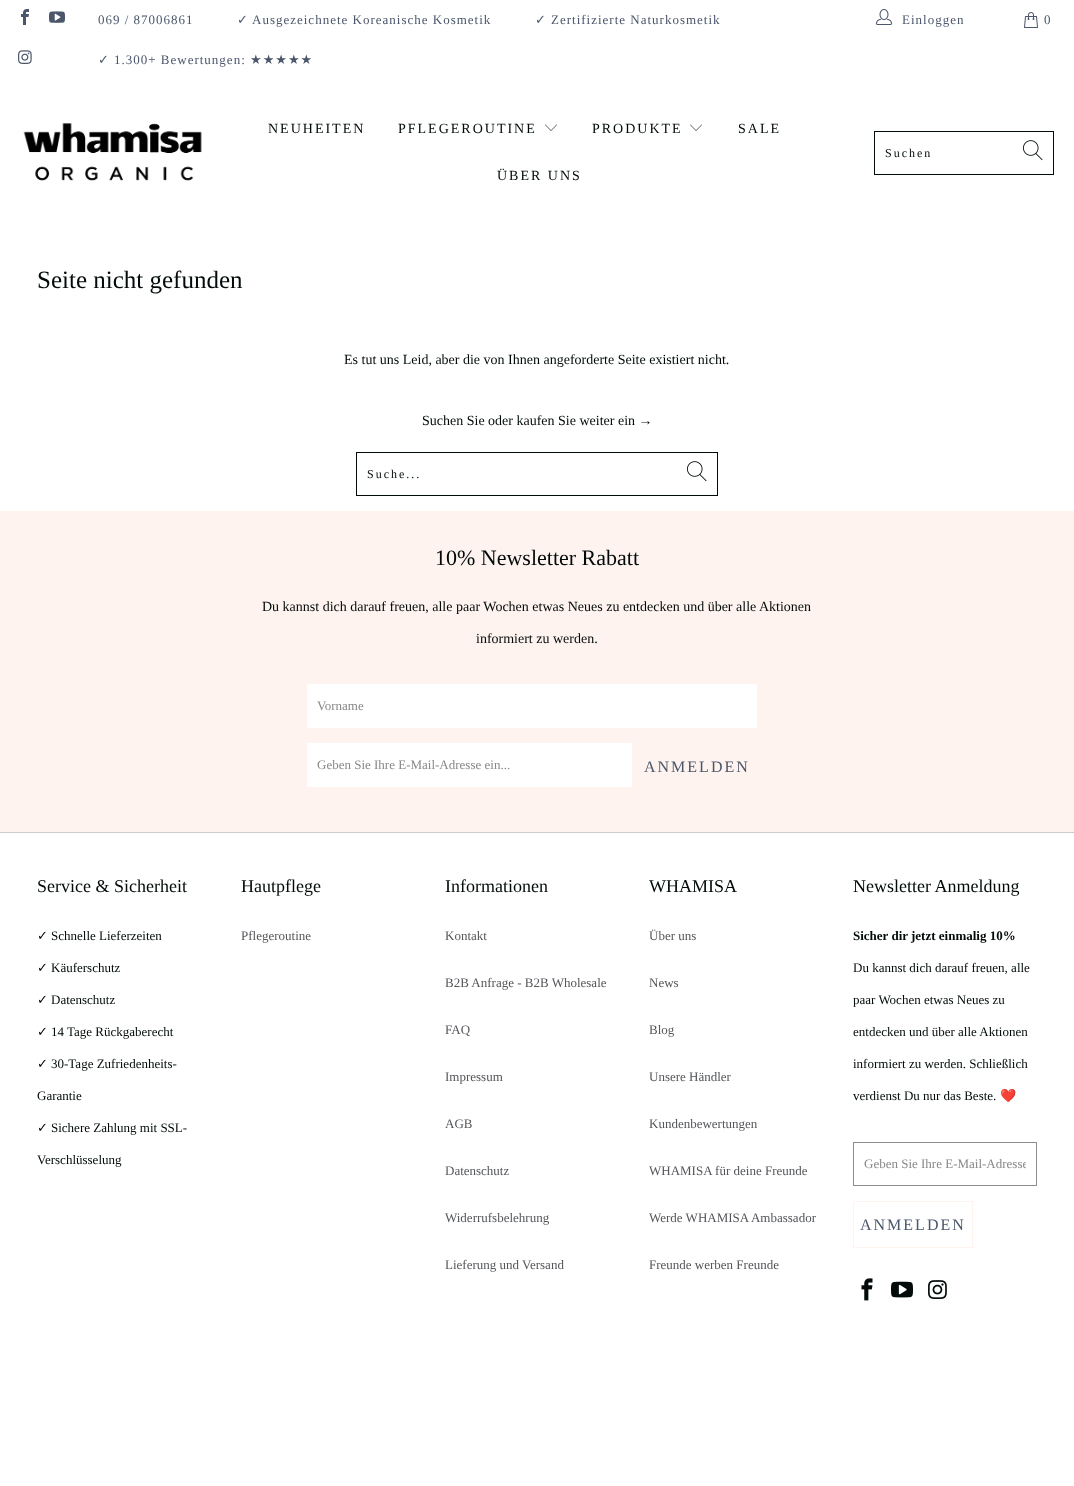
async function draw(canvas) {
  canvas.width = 1074;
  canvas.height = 1486;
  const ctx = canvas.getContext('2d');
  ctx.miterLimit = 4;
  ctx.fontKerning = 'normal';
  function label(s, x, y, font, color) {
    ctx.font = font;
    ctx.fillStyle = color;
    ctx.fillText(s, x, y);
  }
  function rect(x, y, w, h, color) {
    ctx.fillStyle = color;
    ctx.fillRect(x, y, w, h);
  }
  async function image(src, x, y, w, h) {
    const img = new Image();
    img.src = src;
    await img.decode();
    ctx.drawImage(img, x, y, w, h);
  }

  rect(0, 0, 1074, 1486, '#fff');
  await image('assets/img1.png', 21, 9, 8, 16);
  await image('assets/img2.png', 49, 11, 16, 12);
  await image('assets/img3.png', 18, 50, 14, 14);
  ctx.letterSpacing = '1px';
  label('069 / 87006861', 98, 24, '13px Liberation Serif', '#4b566b');
  label('✓', 237, 24, '13px DejaVu Sans', '#4b566b');
  label('Ausgezeichnete Koreanische Kosmetik', 252, 24, '13px Liberation Serif', '#4b566b');
  label('✓', 535, 24, '13px DejaVu Sans', '#4b566b');
  label('Zertifizierte Naturkosmetik', 551, 24, '13px Liberation Serif', '#4b566b');
  label('✓', 98, 64, '13px DejaVu Sans', '#4b566b');
  label('1.300+ Bewertungen:', 114, 64, '13px Liberation Serif', '#4b566b');
  label('★★★★★', 250, 64, '13px DejaVu Sans', '#4b566b');
  await image('assets/img4.png', 876, 9, 16, 16);
  label('Einloggen', 902, 24, '13px Liberation Serif', '#4b566b');
  await image('assets/img5.png', 1024, 12, 14, 16);
  label('0', 1044, 24, '13px Liberation Serif', '#4b566b');
  await image('assets/img6.png', 23, 123, 179, 58);
  ctx.letterSpacing = '2px';
  label('NEUHEITEN', 268, 133, '14px Liberation Serif', '#020a0a');
  label('PFLEGEROUTINE', 398, 133, '14px Liberation Serif', '#020a0a');
  await image('assets/img7.png', 545, 124, 12, 7);
  label('PRODUKTE', 592, 133, '14px Liberation Serif', '#020a0a');
  await image('assets/img7.png', 690, 124, 12, 7);
  label('SALE', 738, 133, '14px Liberation Serif', '#020a0a');
  label('ÜBER UNS', 497, 180, '14px Liberation Serif', '#020a0a');
  ctx.strokeStyle = '#020a0a';
  ctx.strokeRect(874.5, 131.5, 179, 43);
  label('Suchen', 885, 157, '12px Liberation Serif', '#020a0a');
  await image('assets/img8.png', 1023, 140, 20, 21);
  ctx.letterSpacing = '0px';
  label('Seite nicht gefunden', 37, 288, '25px Liberation Serif', '#020a0a');
  label('Es tut uns Leid, aber die von Ihnen angeforderte Seite existiert nicht.', 344, 364, '14px Liberation Serif', '#020a0a');
  label('Suchen Sie oder kaufen Sie weiter ein →', 422, 425, '14px Liberation Serif', '#020a0a');
  ctx.strokeRect(356.5, 452.5, 361, 43);
  ctx.letterSpacing = '2px';
  label('Suche...', 367, 478, '12px Liberation Serif', '#020a0a');
  await image('assets/img8.png', 687, 461, 20, 21);
  rect(0, 511, 1074, 321, '#fef3ee');
  ctx.letterSpacing = '0px';
  label('10% Newsletter Rabatt', 435, 565, '22px Liberation Serif', '#020a0a');
  label('Du kannst dich darauf freuen, alle paar Wochen etwas Neues zu entdecken und über alle Aktionen', 262, 611, '14px Liberation Serif', '#020a0a');
  label('informiert zu werden.', 476, 643, '14px Liberation Serif', '#020a0a');
  rect(307, 684, 450, 44, '#fff');
  label('Vorname', 317, 710, '13px Liberation Serif', '#888');
  rect(307, 743, 325, 44, '#fff');
  label('Geben Sie Ihre E-Mail-Adresse ein...', 317, 769, '13px Liberation Serif', '#888');
  ctx.letterSpacing = '2px';
  label('ANMELDEN', 644, 772, '16px Liberation Serif', '#4b566b');
  rect(0, 832, 1074, 1, '#ccc');
  ctx.letterSpacing = '0px';
  label('Service & Sicherheit', 37, 892, '18px Liberation Serif', '#020a0a');
  label('✓', 37, 940, '13px DejaVu Sans', '#020a0a');
  label('Schnelle Lieferzeiten', 51, 940, '13px Liberation Serif', '#020a0a');
  label('✓', 37, 972, '13px DejaVu Sans', '#020a0a');
  label('Käuferschutz', 51, 972, '13px Liberation Serif', '#020a0a');
  label('✓', 37, 1004, '13px DejaVu Sans', '#020a0a');
  label('Datenschutz', 51, 1004, '13px Liberation Serif', '#020a0a');
  label('✓', 37, 1036, '13px DejaVu Sans', '#020a0a');
  label('14 Tage Rückgaberecht', 51, 1036, '13px Liberation Serif', '#020a0a');
  label('✓', 37, 1068, '13px DejaVu Sans', '#020a0a');
  label('30-Tage Zufriedenheits-', 51, 1068, '13px Liberation Serif', '#020a0a');
  label('Garantie', 37, 1100, '13px Liberation Serif', '#020a0a');
  label('✓', 37, 1132, '13px DejaVu Sans', '#020a0a');
  label('Sichere Zahlung mit SSL-', 51, 1132, '13px Liberation Serif', '#020a0a');
  label('Verschlüsselung', 37, 1164, '13px Liberation Serif', '#020a0a');
  label('Hautpflege', 241, 892, '18px Liberation Serif', '#020a0a');
  label('Pflegeroutine', 241, 940, '13px Liberation Serif', '#54565a');
  label('Informationen', 445, 892, '18px Liberation Serif', '#020a0a');
  label('Kontakt', 445, 940, '13px Liberation Serif', '#54565a');
  label('B2B Anfrage - B2B Wholesale', 445, 987, '13px Liberation Serif', '#54565a');
  label('FAQ', 445, 1034, '13px Liberation Serif', '#54565a');
  label('Impressum', 445, 1081, '13px Liberation Serif', '#54565a');
  label('AGB', 445, 1128, '13px Liberation Serif', '#54565a');
  label('Datenschutz', 445, 1175, '13px Liberation Serif', '#54565a');
  label('Widerrufsbelehrung', 445, 1222, '13px Liberation Serif', '#54565a');
  label('Lieferung und Versand', 445, 1269, '13px Liberation Serif', '#54565a');
  label('WHAMISA', 649, 892, '18px Liberation Serif', '#020a0a');
  label('Über uns', 649, 940, '13px Liberation Serif', '#54565a');
  label('News', 649, 987, '13px Liberation Serif', '#54565a');
  label('Blog', 649, 1034, '13px Liberation Serif', '#54565a');
  label('Unsere Händler', 649, 1081, '13px Liberation Serif', '#54565a');
  label('Kundenbewertungen', 649, 1128, '13px Liberation Serif', '#54565a');
  label('WHAMISA für deine Freunde', 649, 1175, '13px Liberation Serif', '#54565a');
  label('Werde WHAMISA Ambassador', 649, 1222, '13px Liberation Serif', '#54565a');
  label('Freunde werben Freunde', 649, 1269, '13px Liberation Serif', '#54565a');
  label('Newsletter Anmeldung', 853, 892, '18px Liberation Serif', '#020a0a');
  label('Sicher dir jetzt einmalig 10%', 853, 940, 'bold 13px Liberation Serif', '#020a0a');
  label('Du kannst dich darauf freuen, alle', 853, 972, '13px Liberation Serif', '#020a0a');
  label('paar Wochen etwas Neues zu', 853, 1004, '13px Liberation Serif', '#020a0a');
  label('entdecken und über alle Aktionen', 853, 1036, '13px Liberation Serif', '#020a0a');
  label('informiert zu werden. Schließlich', 853, 1068, '13px Liberation Serif', '#020a0a');
  label('verdienst Du nur das Beste.', 853, 1100, '13px Liberation Serif', '#020a0a');
  label('❤️', 1000, 1100, '13px Noto Color Emoji', '#020a0a');
  ctx.strokeStyle = '#8d8d8d';
  ctx.strokeRect(853.5, 1142.5, 183, 43);
  ctx.save();
  ctx.beginPath();
  ctx.rect(864, 1156, 162, 16);
  ctx.clip();
  label('Geben Sie Ihre E-Mail-Adresse', 864, 1168, '13px Liberation Serif', '#888');
  ctx.restore();
  ctx.strokeStyle = '#fef3ee';
  ctx.strokeRect(853.5, 1201.5, 119, 46);
  ctx.letterSpacing = '2px';
  label('ANMELDEN', 860, 1230, '16px Liberation Serif', '#4b566b');
  await image('assets/img9.png', 861, 1278, 12, 23);
  await image('assets/img10.png', 891, 1281, 22, 17);
  await image('assets/img11.png', 928, 1280, 19, 19);
}

draw(document.querySelector('canvas'));
